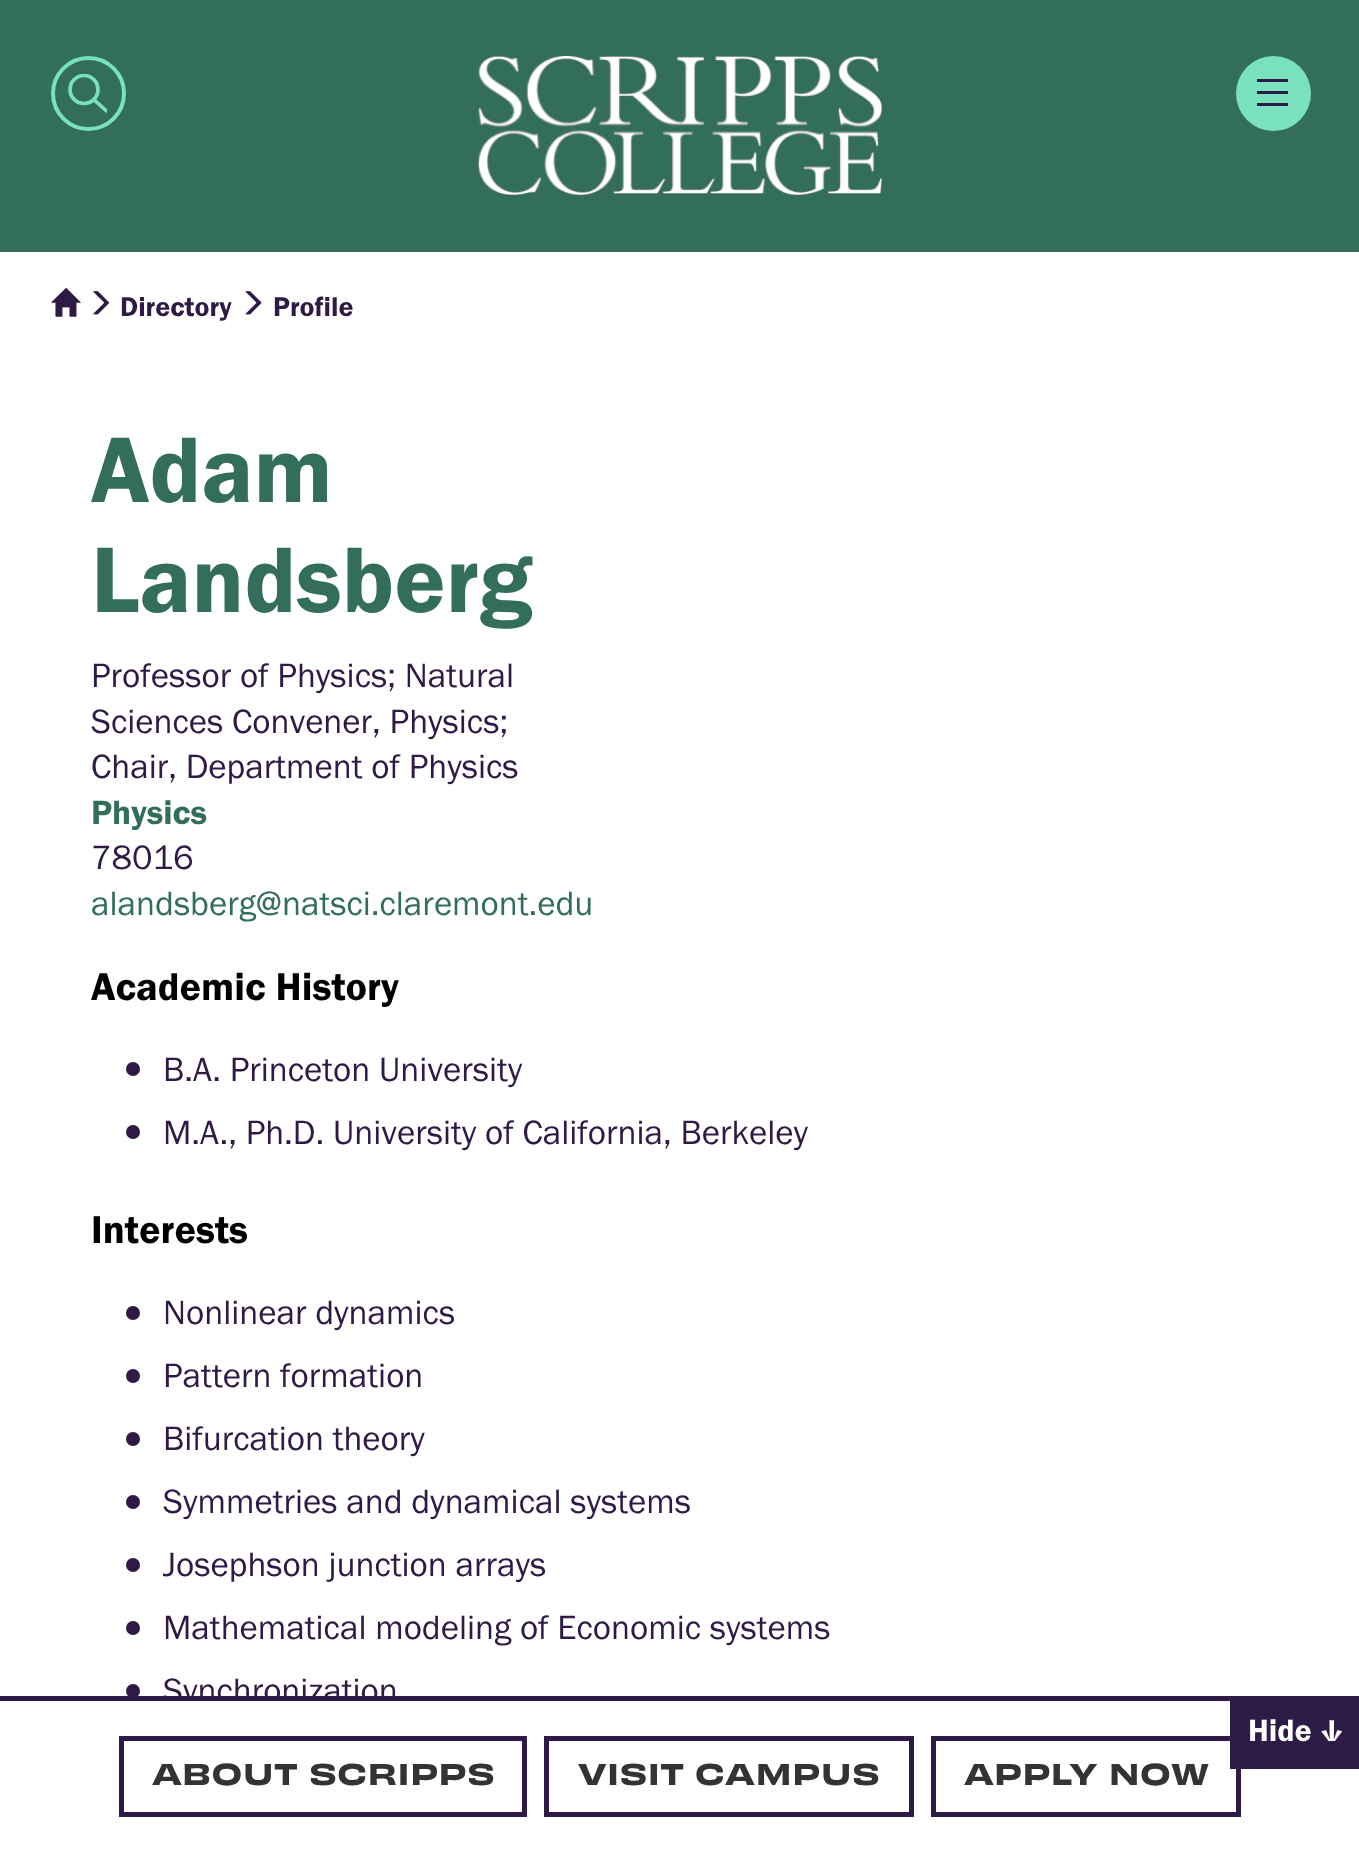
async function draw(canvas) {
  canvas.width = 1359;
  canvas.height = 1850;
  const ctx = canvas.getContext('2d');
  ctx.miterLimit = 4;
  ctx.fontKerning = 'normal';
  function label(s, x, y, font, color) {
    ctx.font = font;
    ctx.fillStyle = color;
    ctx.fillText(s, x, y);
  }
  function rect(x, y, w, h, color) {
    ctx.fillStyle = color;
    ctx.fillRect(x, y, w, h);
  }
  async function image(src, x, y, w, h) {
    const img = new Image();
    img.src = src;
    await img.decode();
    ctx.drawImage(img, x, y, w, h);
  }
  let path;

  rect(0, 0, 1359, 1850, '#fff');
  rect(0, 0, 1359, 252, '#326e5a');
  ctx.beginPath();
  ctx.arc(88.5, 93.5, 35.5, 0, 2 * Math.PI);
  ctx.strokeStyle = '#7ae1bf';
  ctx.lineWidth = 4;
  ctx.stroke();
  ctx.save();
  ctx.beginPath();
  ctx.rect(68, 74, 39, 40);
  ctx.clip();
  ctx.beginPath();
  ctx.arc(84, 89.5, 14, 0, 2 * Math.PI);
  ctx.lineWidth = 3.7;
  ctx.stroke();
  path = new Path2D('M95.5 101L106 110.5');
  ctx.lineCap = 'square';
  ctx.stroke(path);
  ctx.restore();
  await image('assets/img1.png', 477, 56, 405, 139);
  ctx.fillStyle = '#7ae1bf';
  ctx.beginPath();
  ctx.arc(1273.5, 93.5, 37.5, 0, 2 * Math.PI);
  ctx.fill();
  rect(1257, 79, 31, 3, '#2e1a47');
  rect(1257, 91, 31, 3, '#2e1a47');
  rect(1257, 103, 31, 3, '#2e1a47');
  await image('assets/img2.png', 51, 288, 30, 29);
  await image('assets/img3.png', 93, 291, 17, 24);
  label('Directory', 120, 316, '28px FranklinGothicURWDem', '#2f1a45');
  await image('assets/img4.png', 245, 291, 17, 24);
  label('Profile', 273, 316, '28px FranklinGothicURWDem', '#2f1a45');
  label('Adam', 91, 502, '96.25px FranklinGothicURWDem', '#326e5a');
  label('Landsberg', 91, 612, '96.25px FranklinGothicURWDem', '#326e5a');
  label('Professor of Physics; Natural', 91, 687, '35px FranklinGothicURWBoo', '#2f1a45');
  label('Sciences Convener, Physics;', 91, 733, '35px FranklinGothicURWBoo', '#2f1a45');
  label('Chair, Department of Physics', 91, 778, '35px FranklinGothicURWBoo', '#2f1a45');
  label('Physics', 91, 824, '35px FranklinGothicURWDem', '#326e5a');
  label('78016', 91, 869, '35px FranklinGothicURWBoo', '#2f1a45');
  label('alandsberg@natsci.claremont.edu', 91, 915, '35px FranklinGothicURWBoo', '#326e5a');
  label('Academic History', 91, 1000, '40.25px FranklinGothicURWDem', '#000');
  ctx.fillStyle = '#2f1a45';
  ctx.beginPath();
  ctx.arc(133, 1069, 7, 0, 2 * Math.PI);
  ctx.fill();
  label('B.A. Princeton University', 163, 1081, '35px FranklinGothicURWBoo', '#2f1a45');
  ctx.beginPath();
  ctx.arc(133, 1132, 7, 0, 2 * Math.PI);
  ctx.fill();
  label('M.A., Ph.D. University of California, Berkeley', 163, 1144, '35px FranklinGothicURWBoo', '#2f1a45');
  label('Interests', 91, 1243, '40.25px FranklinGothicURWDem', '#000');
  ctx.fillStyle = '#2f1a45';
  ctx.beginPath();
  ctx.arc(133, 1313, 7, 0, 2 * Math.PI);
  ctx.fill();
  label('Nonlinear dynamics', 163, 1324, '35px FranklinGothicURWBoo', '#2f1a45');
  ctx.beginPath();
  ctx.arc(133, 1376, 7, 0, 2 * Math.PI);
  ctx.fill();
  label('Pattern formation', 163, 1387, '35px FranklinGothicURWBoo', '#2f1a45');
  ctx.beginPath();
  ctx.arc(133, 1439, 7, 0, 2 * Math.PI);
  ctx.fill();
  label('Bifurcation theory', 163, 1450, '35px FranklinGothicURWBoo', '#2f1a45');
  ctx.beginPath();
  ctx.arc(133, 1502, 7, 0, 2 * Math.PI);
  ctx.fill();
  label('Symmetries and dynamical systems', 163, 1513, '35px FranklinGothicURWBoo', '#2f1a45');
  ctx.beginPath();
  ctx.arc(133, 1565, 7, 0, 2 * Math.PI);
  ctx.fill();
  label('Josephson junction arrays', 163, 1576, '35px FranklinGothicURWBoo', '#2f1a45');
  ctx.beginPath();
  ctx.arc(133, 1628, 7, 0, 2 * Math.PI);
  ctx.fill();
  label('Mathematical modeling of Economic systems', 163, 1639, '35px FranklinGothicURWBoo', '#2f1a45');
  ctx.beginPath();
  ctx.arc(133, 1691, 7, 0, 2 * Math.PI);
  ctx.fill();
  label('Synchronization', 163, 1702, '35px FranklinGothicURWBoo', '#2f1a45');
  rect(167, 1701, 228, 8, '#fff');
  rect(0, 1696, 1359, 5, '#2e1a47');
  ctx.strokeStyle = '#2e1a47';
  ctx.lineWidth = 5;
  ctx.strokeRect(933.5, 1738.5, 305, 76);
  rect(1230, 1701, 129, 68, '#2e1a47');
  label('Hide', 1248, 1741, '32px FranklinGothicURWDem', '#fff');
  await image('assets/img5.png', 1321, 1720, 21, 21);
  ctx.strokeRect(121.5, 1738.5, 403, 76);
  ctx.letterSpacing = '0.5px';
  label('ABOUT SCRIPPS', 152, 1785, 'bold 28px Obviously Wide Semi', '#333');
  ctx.strokeRect(546.5, 1738.5, 365, 76);
  label('VISIT CAMPUS', 578, 1785, 'bold 28px Obviously Wide Semi', '#333');
  label('APPLY NOW', 964, 1785, 'bold 28px Obviously Wide Semi', '#333');
}

draw(document.querySelector('canvas'));
